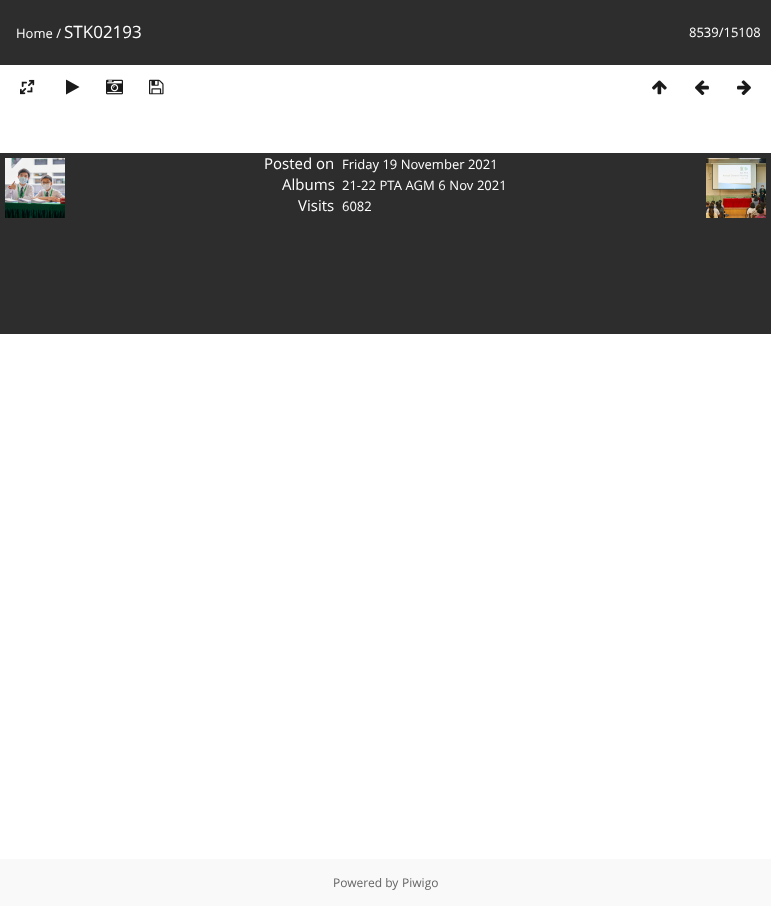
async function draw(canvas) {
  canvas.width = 771;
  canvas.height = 906;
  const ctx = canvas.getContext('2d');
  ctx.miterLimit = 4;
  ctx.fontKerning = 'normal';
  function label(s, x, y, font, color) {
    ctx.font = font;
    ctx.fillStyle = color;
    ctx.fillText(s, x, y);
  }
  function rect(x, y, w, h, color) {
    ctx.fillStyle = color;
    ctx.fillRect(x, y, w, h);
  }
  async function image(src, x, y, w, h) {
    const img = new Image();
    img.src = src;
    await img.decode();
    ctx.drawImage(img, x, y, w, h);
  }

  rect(0, 0, 771, 906, '#fff');
  rect(0, 0, 771, 65, '#2d2d2d');
  label('Home /', 16, 38, '13px Open Sans', '#fff');
  label('STK02193', 64, 38, '17px Open Sans', '#fff');
  label('8539/15108', 689, 37, '13px Open Sans', '#fff');
  await image('assets/img1.png', 20, 79, 15, 16);
  label('▶', 66, 93, '17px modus', '#1a1a1a');
  await image('assets/img2.png', 106, 79, 17, 16);
  label('💾', 149, 93, '17px modus', '#1a1a1a');
  label('↑', 652, 93, '17px modus', '#1a1a1a');
  label('←', 695, 93, '17px modus', '#1a1a1a');
  label('→', 737, 93, '17px modus', '#1a1a1a');
  rect(0, 153, 771, 181, '#2d2d2d');
  label('Posted on', 264, 169, '15px Open Sans', '#fff');
  label('Friday 19 November 2021', 342, 169, '13px Open Sans', '#fff');
  label('Albums', 282, 190, '15px Open Sans', '#fff');
  ctx.wordSpacing = '0.25px';
  label('21-22 PTA AGM 6 Nov 2021', 342, 190, '13px Open Sans', '#fff');
  ctx.wordSpacing = '0px';
  label('Visits', 298, 211, '15px Open Sans', '#fff');
  label('6082', 342, 211, '13px Open Sans', '#fff');
  await image('assets/img3.png', 5, 158, 60, 60);
  await image('assets/img4.png', 706, 158, 60, 60);
  rect(0, 859, 771, 47, '#f9f9f9');
  label('Powered by', 333, 887, '12px Open Sans', '#666');
  label('Piwigo', 402, 887, '12px Open Sans', '#666');
}

draw(document.querySelector('canvas'));
